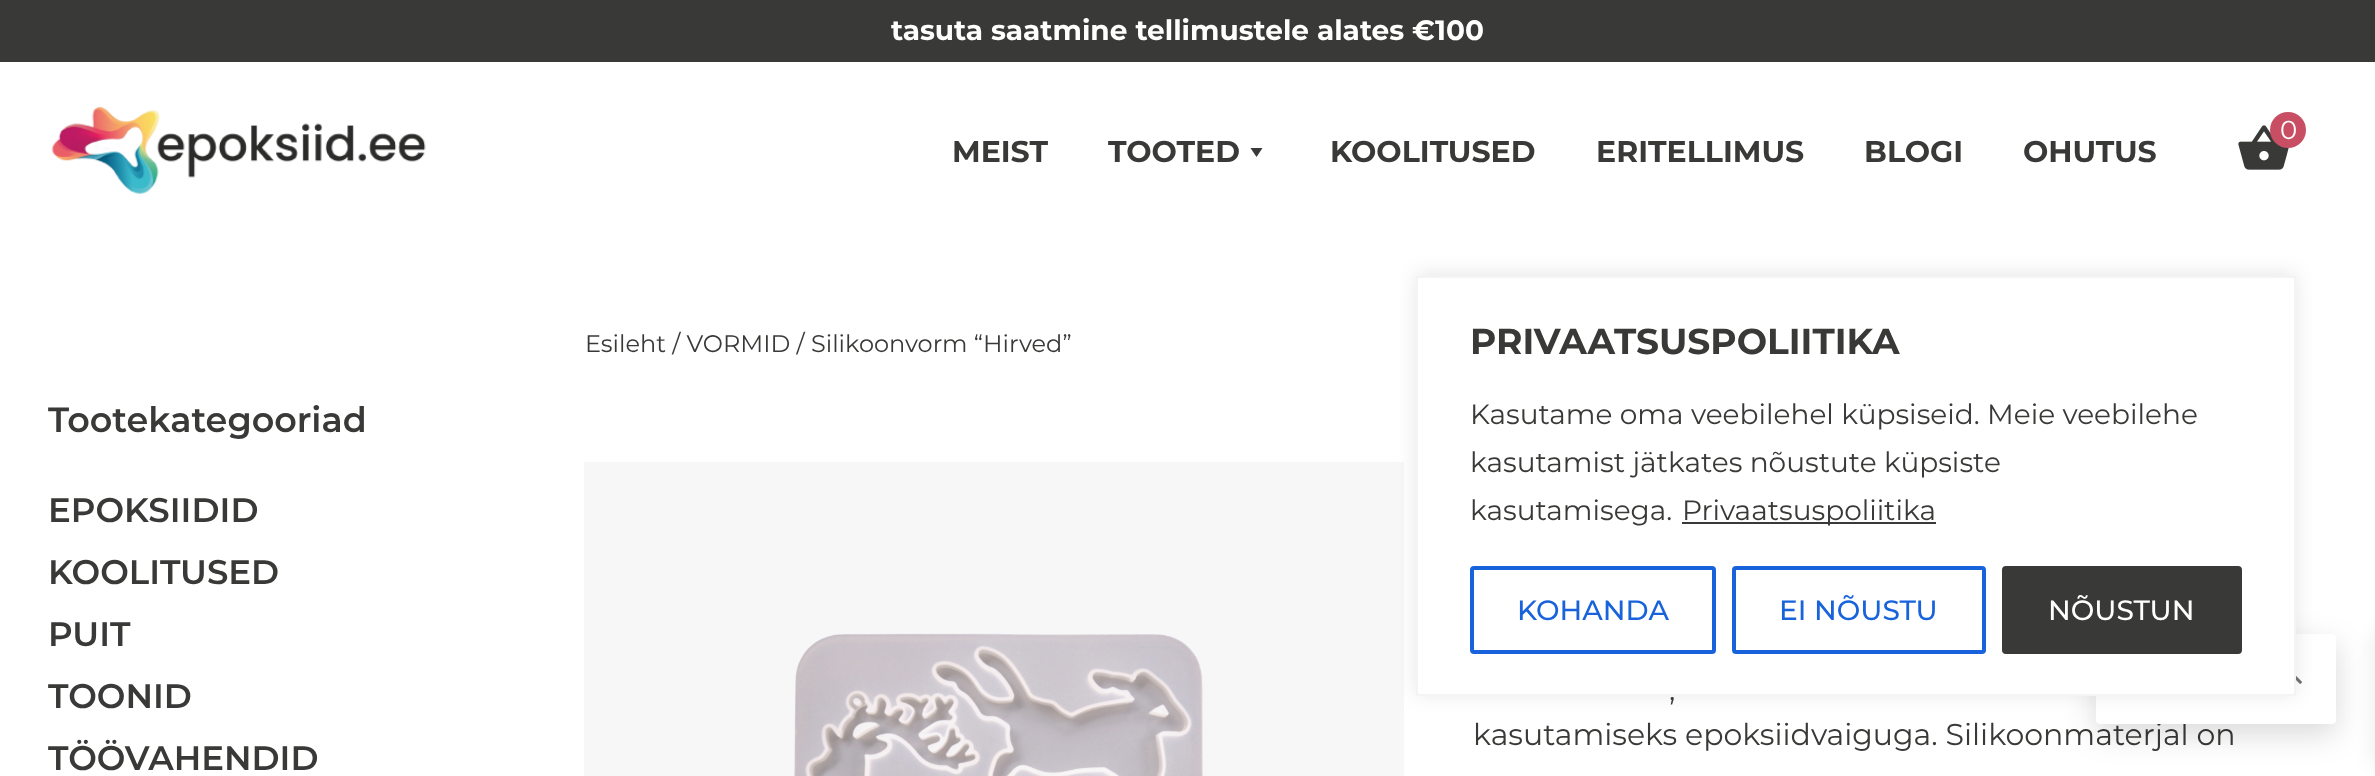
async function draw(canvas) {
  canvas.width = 2375;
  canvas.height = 776;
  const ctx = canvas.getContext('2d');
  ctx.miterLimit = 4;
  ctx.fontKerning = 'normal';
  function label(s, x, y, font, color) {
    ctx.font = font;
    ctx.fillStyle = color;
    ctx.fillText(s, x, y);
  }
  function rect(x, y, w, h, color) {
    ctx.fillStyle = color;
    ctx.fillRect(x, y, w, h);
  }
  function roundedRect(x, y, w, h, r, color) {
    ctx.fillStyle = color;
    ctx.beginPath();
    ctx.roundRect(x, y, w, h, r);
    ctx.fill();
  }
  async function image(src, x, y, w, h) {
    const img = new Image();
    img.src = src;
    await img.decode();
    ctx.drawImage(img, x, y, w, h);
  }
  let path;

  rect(0, 0, 2375, 776, '#fff');
  rect(0, 0, 2375, 62, '#393937');
  label('tasuta saatmine tellimustele alates €100', 891, 40, 'bold 28px Montserrat', '#fff');
  await image('assets/img1.png', 51, 106, 375, 88);
  await image('assets/img2.png', 2238, 125, 51, 45);
  ctx.fillStyle = '#c84f63';
  ctx.beginPath();
  ctx.arc(2288, 130, 18, 0, 2 * Math.PI);
  ctx.fill();
  label('0', 2280, 139, '26px Montserrat', '#fff');
  label('MEIST', 952, 162, 'bold 30px Montserrat', '#393937');
  label('TOOTED', 1108, 162, 'bold 30px Montserrat', '#393937');
  path = new Path2D('M1262.5 148L1256.5 157L1250.5 148Z');
  ctx.fill(path);
  label('KOOLITUSED', 1330, 162, 'bold 30px Montserrat', '#393937');
  label('ERITELLIMUS', 1596, 162, 'bold 30px Montserrat', '#393937');
  label('BLOGI', 1864, 162, 'bold 30px Montserrat', '#393937');
  label('OHUTUS', 2023, 162, 'bold 30px Montserrat', '#393937');
  await image('assets/img3.png', 584, 462, 820, 314);
  label('kasutamiseks epoksiidvaiguga. Silikoonmaterjal on', 1473, 745, '30px Montserrat', '#393937');
  ctx.fillStyle = '#00000026';
  ctx.filter = 'blur(15px)';
  ctx.beginPath();
  ctx.roundRect(2096, 644, 240, 90, 4);
  ctx.fill();
  ctx.filter = 'none';
  roundedRect(2096, 634, 240, 90, 4, '#fff');
  await image('assets/img4.png', 2296, 676, 6, 8);
  ctx.fillStyle = '#acabab4d';
  ctx.filter = 'blur(10px)';
  ctx.beginPath();
  ctx.rect(1416, 274, 880, 420);
  ctx.fill();
  ctx.filter = 'none';
  ctx.fillStyle = '#fff';
  ctx.beginPath();
  ctx.rect(1417, 277, 878, 418);
  ctx.fill();
  ctx.strokeStyle = '#f4f4f4';
  ctx.lineWidth = 2;
  ctx.stroke();
  label('PRIVAATSUSPOLIITIKA', 1470, 354, 'bold 36px Montserrat', '#393937');
  label('Kasutame oma veebilehel küpsiseid. Meie veebilehe', 1470, 424, '28px Montserrat', '#393937');
  label('kasutamist jätkates nõustute küpsiste', 1470, 472, '28px Montserrat', '#393937');
  label('kasutamisega.', 1470, 520, '28px Montserrat', '#393937');
  rect(1682, 522, 254, 2, '#393937');
  label('Privaatsuspoliitika', 1682, 520, '28px Montserrat', '#393937');
  ctx.beginPath();
  ctx.roundRect(1472, 568, 242, 84, 2);
  ctx.strokeStyle = '#1863dc';
  ctx.lineWidth = 4;
  ctx.stroke();
  label('KOHANDA', 1517, 620, '500 28px Montserrat', '#1863dc');
  ctx.beginPath();
  ctx.roundRect(1734, 568, 250, 84, 2);
  ctx.stroke();
  label('EI NÕUSTU', 1779, 620, '500 28px Montserrat', '#1863dc');
  ctx.fillStyle = '#393937';
  ctx.beginPath();
  ctx.roundRect(2004, 568, 236, 84, 2);
  ctx.fill();
  ctx.strokeStyle = '#393937';
  ctx.stroke();
  label('NÕUSTUN', 2048, 620, '500 28px Montserrat', '#fff');
  label('Tootekategooriad', 48, 432, '600 35px Montserrat', '#393937');
  label('EPOKSIIDID', 48, 522, '600 34px Montserrat', '#393937');
  label('KOOLITUSED', 48, 584, '600 34px Montserrat', '#393937');
  label('PUIT', 48, 646, '600 34px Montserrat', '#393937');
  label('TOONID', 48, 708, '600 34px Montserrat', '#393937');
  label('TÖÖVAHENDID', 48, 770, '600 34px Montserrat', '#393937');
  label('Esileht / VORMID / Silikoonvorm “Hirved”', 585, 352, '24px Montserrat', '#393937');
  label(',', 1669, 700, '30px Montserrat', '#393937');
  ctx.fillStyle = '#0000001a';
  ctx.filter = 'blur(10px)';
  ctx.beginPath();
  ctx.rect(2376, 632, 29, 134);
  ctx.fill();
  ctx.filter = 'none';
}

draw(document.querySelector('canvas'));
